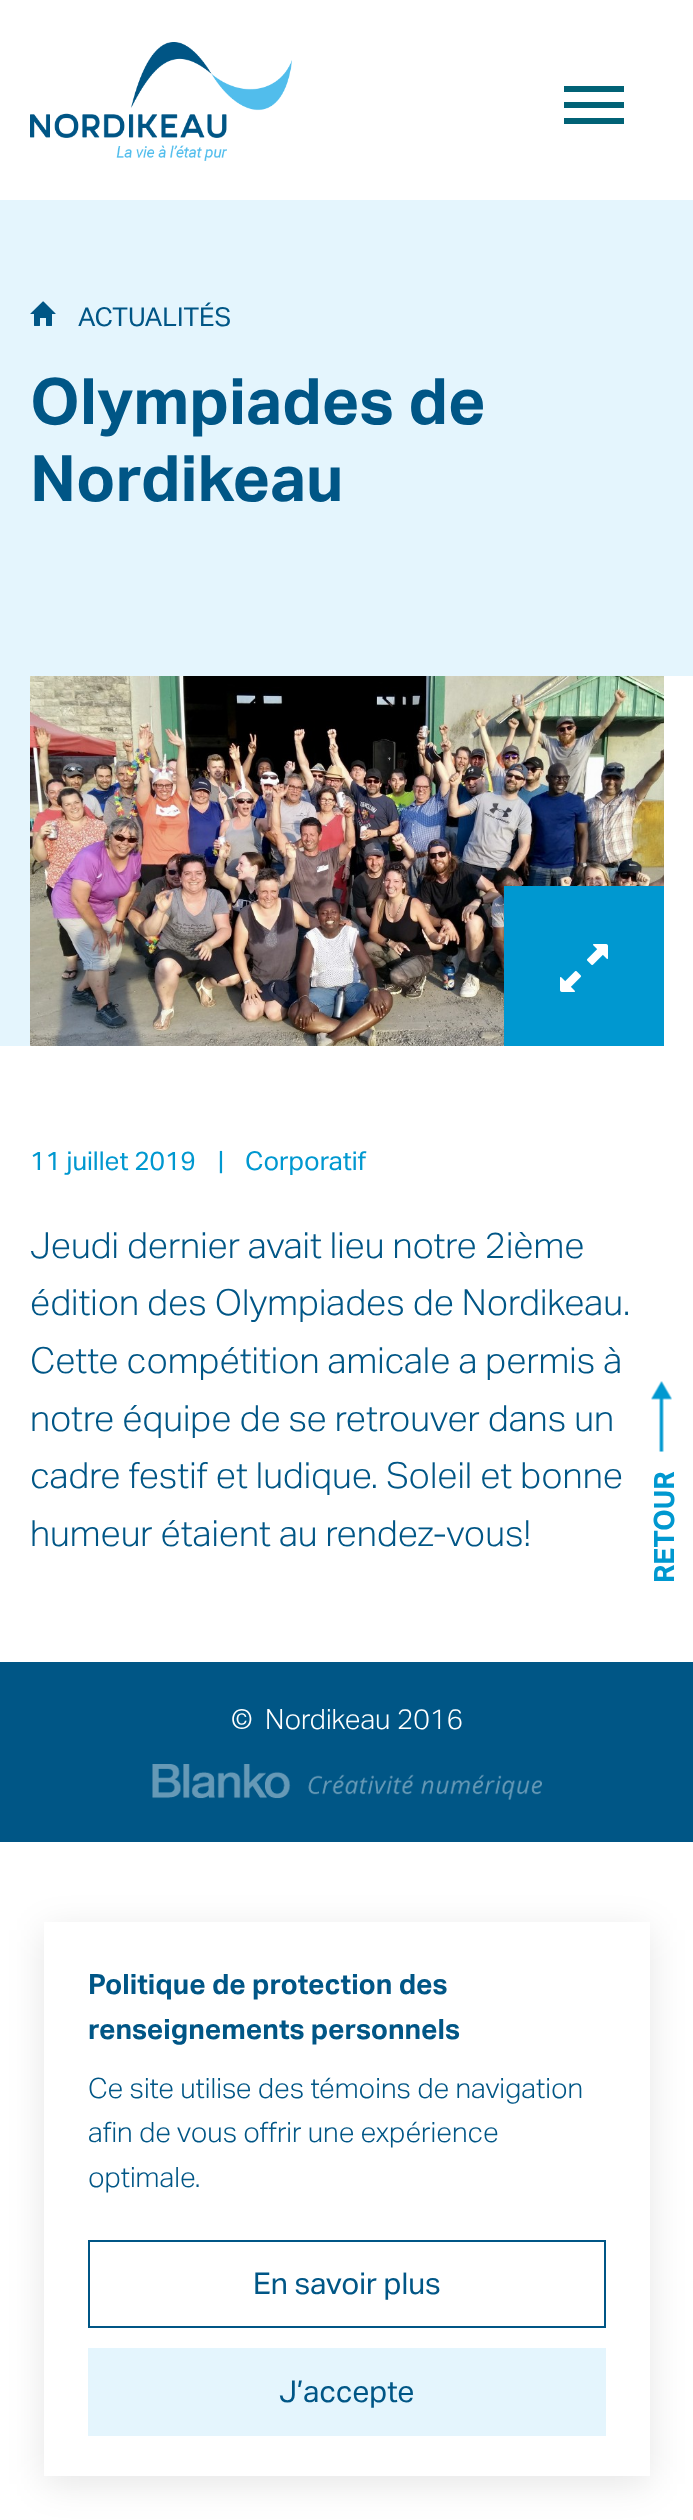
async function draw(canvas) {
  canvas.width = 693;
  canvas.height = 2520;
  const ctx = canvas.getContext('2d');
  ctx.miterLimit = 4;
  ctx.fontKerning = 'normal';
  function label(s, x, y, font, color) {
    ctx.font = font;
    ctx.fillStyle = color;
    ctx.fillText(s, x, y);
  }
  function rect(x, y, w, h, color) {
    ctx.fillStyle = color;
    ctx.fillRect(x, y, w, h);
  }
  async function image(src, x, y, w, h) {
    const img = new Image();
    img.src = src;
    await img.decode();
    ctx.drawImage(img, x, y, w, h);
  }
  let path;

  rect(0, 0, 693, 2520, '#fff');
  await image('assets/img1.png', 30, 42, 262, 119);
  rect(564, 102, 60, 6, '#016276');
  rect(564, 86, 60, 6, '#016276');
  rect(564, 118, 60, 6, '#016276');
  rect(0, 200, 693, 476, '#e4f5fd');
  await image('assets/img2.png', 30, 301, 26, 25);
  label('ACTUALITÉS', 78, 326, '26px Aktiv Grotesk', '#005686');
  label('Olympiades de', 30, 424, 'bold 64px Aktiv Grotesk', '#005686');
  label('Nordikeau', 30, 501, 'bold 64px Aktiv Grotesk', '#005686');
  rect(0, 676, 30, 370, '#e4f5fd');
  await image('assets/img3.png', 30, 676, 634, 370);
  rect(504, 886, 160, 160, '#0098d0');
  await image('assets/img4.png', 560, 944, 48, 48);
  label('11 juillet 2019', 30, 1170, '26px Aktiv Grotesk', '#0098d0');
  label('|', 218, 1170, '26px Aktiv Grotesk', '#0098d0');
  label('Corporatif', 245, 1170, '26px Aktiv Grotesk', '#0098d0');
  label('Jeudi dernier avait lieu notre 2ième', 30, 1258, '300 36px Aktiv Grotesk', '#005686');
  label('édition des Olympiades de Nordikeau.', 30, 1315, '300 36px Aktiv Grotesk', '#005686');
  label('Cette compétition amicale a permis à', 30, 1373, '300 36px Aktiv Grotesk', '#005686');
  label('notre équipe de se retrouver dans un', 30, 1431, '300 36px Aktiv Grotesk', '#005686');
  label('cadre festif et ludique. Soleil et bonne', 30, 1488, '300 36px Aktiv Grotesk', '#005686');
  label('humeur étaient au rendez-vous!', 30, 1546, '300 36px Aktiv Grotesk', '#005686');
  rect(0, 1662, 693, 180, '#005686');
  await image('assets/img5.png', 651, 1381, 21, 71);
  ctx.font = 'bold 28px Aktiv Grotesk';
  ctx.fillStyle = '#0098d0';
  ctx.save();
  ctx.translate(674, 1583);
  ctx.rotate(-90 * Math.PI / 180);
  ctx.fillText('RETOUR', 0, 0);
  ctx.restore();
  label('©  Nordikeau 2016', 231, 1729, '300 28px Aktiv Grotesk', '#fff');
  await image('assets/img6.png', 152, 1764, 390, 36);
  ctx.save();
  path = new Path2D('M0 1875H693V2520H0ZM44 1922H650V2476H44Z');
  ctx.clip(path, 'evenodd');
  ctx.fillStyle = '#0000001a';
  ctx.filter = 'blur(18px)';
  ctx.beginPath();
  ctx.rect(44, 1930, 606, 554);
  ctx.fill();
  ctx.filter = 'none';
  ctx.restore();
  label('Politique de protection des', 88, 1994, 'bold 28px Aktiv Grotesk', '#005686');
  label('renseignements personnels', 88, 2039, 'bold 28px Aktiv Grotesk', '#005686');
  label('Ce site utilise des témoins de navigation', 88, 2098, '300 28px Aktiv Grotesk', '#005686');
  label('afin de vous offrir une expérience', 88, 2142, '300 28px Aktiv Grotesk', '#005686');
  label('optimale.', 88, 2187, '300 28px Aktiv Grotesk', '#005686');
  ctx.strokeStyle = '#005686';
  ctx.lineWidth = 2;
  ctx.strokeRect(89, 2241, 516, 86);
  label('En savoir plus', 253, 2294, '30px Aktiv Grotesk', '#005686');
  rect(88, 2348, 518, 88, '#e4f5fd');
  label('J’accepte', 279, 2402, '30px Aktiv Grotesk', '#005686');
}

draw(document.querySelector('canvas'));
